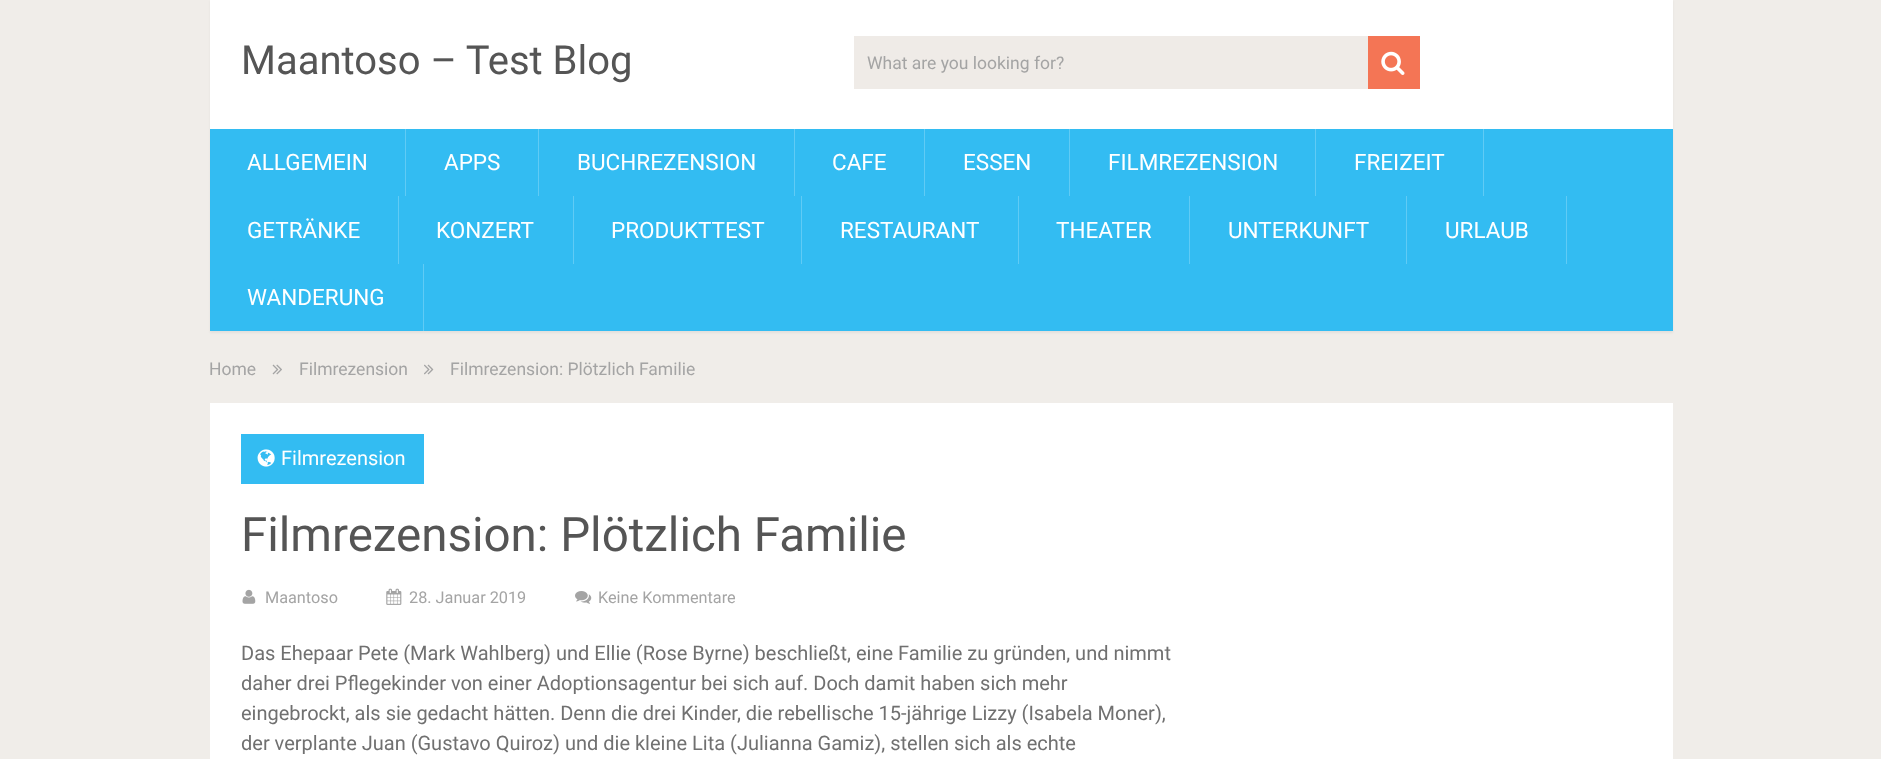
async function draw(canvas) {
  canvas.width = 1881;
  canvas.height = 759;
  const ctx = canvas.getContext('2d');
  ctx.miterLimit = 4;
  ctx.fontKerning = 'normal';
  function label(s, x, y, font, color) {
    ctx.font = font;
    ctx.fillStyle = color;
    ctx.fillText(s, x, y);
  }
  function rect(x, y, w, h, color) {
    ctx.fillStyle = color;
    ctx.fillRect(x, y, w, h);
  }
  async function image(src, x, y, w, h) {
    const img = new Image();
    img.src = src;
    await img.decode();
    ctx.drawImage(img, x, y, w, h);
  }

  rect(0, 0, 1881, 759, '#f0ede9');
  ctx.fillStyle = '#0000000d';
  ctx.filter = 'blur(1px)';
  ctx.beginPath();
  ctx.rect(210, 1, 1463, 332);
  ctx.fill();
  ctx.filter = 'none';
  rect(210, 0, 1463, 129, '#fff');
  label('Maantoso – Test Blog', 241, 74, '40px Roboto', '#555');
  rect(854, 36, 514, 53, '#efebe7');
  label('What are you looking for?', 867, 69, '17.5px Roboto', '#a4a4a4');
  rect(1368, 36, 52, 53, '#f47555');
  await image('assets/img1.png', 1381, 51, 24, 24);
  rect(210, 129, 1463, 202, '#33bcf2');
  rect(405, 129, 1, 67, '#60cbf5');
  label('ALLGEMEIN', 247, 170, '22.5px Roboto', '#fff');
  rect(538, 129, 1, 67, '#60cbf5');
  label('APPS', 444, 170, '22.5px Roboto', '#fff');
  rect(794, 129, 1, 67, '#60cbf5');
  label('BUCHREZENSION', 577, 170, '22.5px Roboto', '#fff');
  rect(924, 129, 1, 67, '#60cbf5');
  label('CAFE', 832, 170, '22.5px Roboto', '#fff');
  rect(1069, 129, 1, 67, '#60cbf5');
  label('ESSEN', 963, 170, '22.5px Roboto', '#fff');
  rect(1315, 129, 1, 67, '#60cbf5');
  label('FILMREZENSION', 1108, 170, '22.5px Roboto', '#fff');
  rect(1483, 129, 1, 67, '#60cbf5');
  label('FREIZEIT', 1354, 170, '22.5px Roboto', '#fff');
  rect(398, 196, 1, 68, '#60cbf5');
  label('GETRÄNKE', 247, 238, '22.5px Roboto', '#fff');
  rect(573, 196, 1, 68, '#60cbf5');
  label('KONZERT', 436, 238, '22.5px Roboto', '#fff');
  rect(801, 196, 1, 68, '#60cbf5');
  label('PRODUKTTEST', 611, 238, '22.5px Roboto', '#fff');
  rect(1018, 196, 1, 68, '#60cbf5');
  label('RESTAURANT', 840, 238, '22.5px Roboto', '#fff');
  rect(1189, 196, 1, 68, '#60cbf5');
  label('THEATER', 1056, 238, '22.5px Roboto', '#fff');
  rect(1406, 196, 1, 68, '#60cbf5');
  label('UNTERKUNFT', 1228, 238, '22.5px Roboto', '#fff');
  rect(1566, 196, 1, 68, '#60cbf5');
  label('URLAUB', 1445, 238, '22.5px Roboto', '#fff');
  rect(423, 264, 1, 67, '#60cbf5');
  label('WANDERUNG', 247, 305, '22.5px Roboto', '#fff');
  label('Home', 209, 375, '17.5px Roboto', '#a4a4a4');
  await image('assets/img2.png', 272, 364, 10, 11);
  label('Filmrezension', 299, 375, '17.5px Roboto', '#a4a4a4');
  await image('assets/img3.png', 424, 364, 10, 11);
  label('Filmrezension: Plötzlich Familie', 450, 375, '17.5px Roboto', '#a4a4a4');
  rect(210, 403, 1463, 356, '#fff');
  rect(241, 434, 183, 50, '#33bcf2');
  await image('assets/img4.png', 257, 449, 18, 18);
  label('Filmrezension', 281, 465, '20px Roboto', '#fff');
  label('Filmrezension: Plötzlich Familie', 241, 551, '47.5px Roboto', '#555');
  await image('assets/img5.png', 242, 589, 14, 15);
  label('Maantoso', 265, 603, '16.25px Roboto', '#a4a4a4');
  await image('assets/img6.png', 386, 588, 16, 17);
  label('28. Januar 2019', 409, 603, '16.25px Roboto', '#a4a4a4');
  await image('assets/img7.png', 575, 591, 17, 13);
  label('Keine Kommentare', 598, 603, '16.25px Roboto', '#a4a4a4');
  label('Das Ehepaar Pete (Mark Wahlberg) und Ellie (Rose Byrne) beschließt, eine Familie zu gründen, und nimmt', 241, 660, '20px Roboto', '#707070');
  label('daher drei Pflegekinder von einer Adoptionsagentur bei sich auf. Doch damit haben sich mehr', 241, 690, '20px Roboto', '#707070');
  label('eingebrockt, als sie gedacht hätten. Denn die drei Kinder, die rebellische 15-jährige Lizzy (Isabela Moner),', 241, 720, '20px Roboto', '#707070');
  label('der verplante Juan (Gustavo Quiroz) und die kleine Lita (Julianna Gamiz), stellen sich als echte', 241, 750, '20px Roboto', '#707070');
}

draw(document.querySelector('canvas'));
